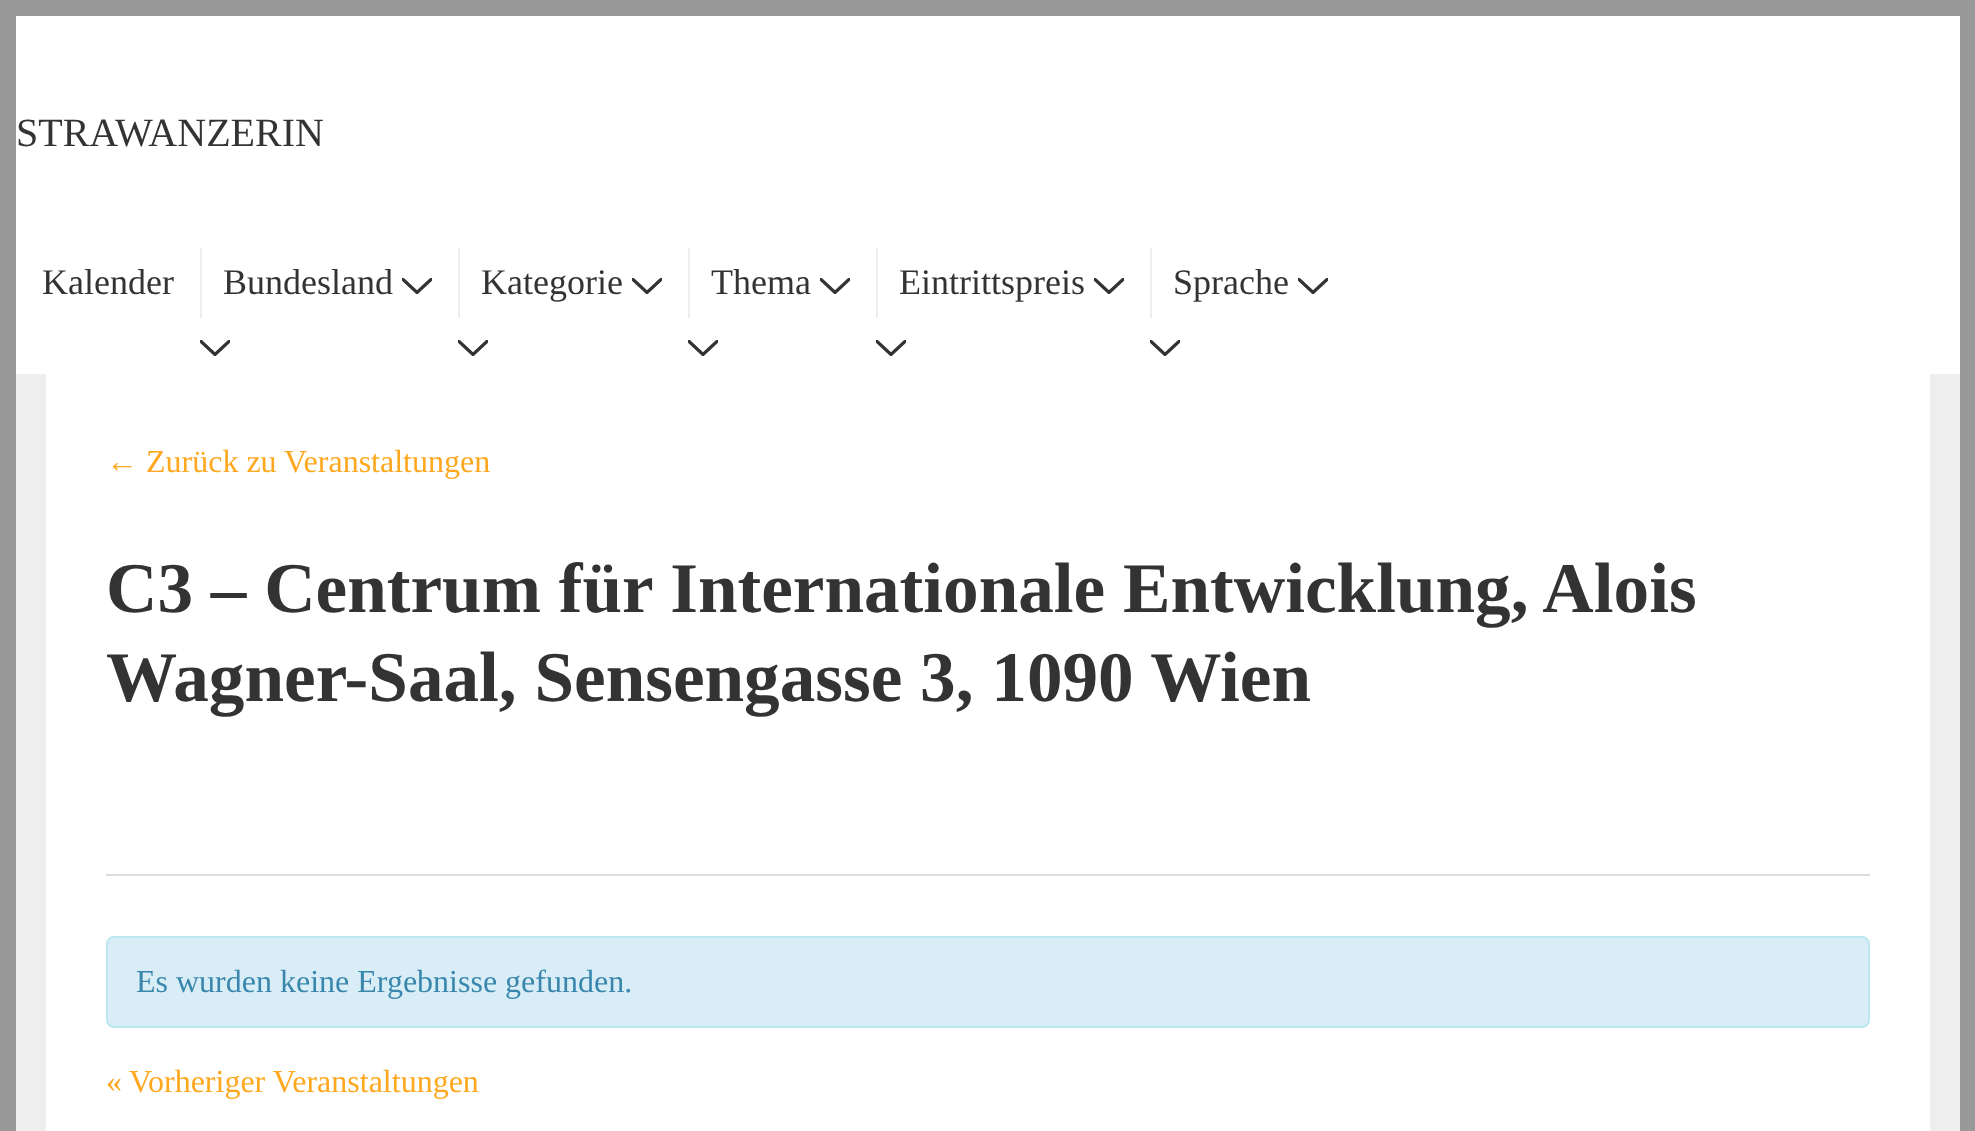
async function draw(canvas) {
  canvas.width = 1975;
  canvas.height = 1131;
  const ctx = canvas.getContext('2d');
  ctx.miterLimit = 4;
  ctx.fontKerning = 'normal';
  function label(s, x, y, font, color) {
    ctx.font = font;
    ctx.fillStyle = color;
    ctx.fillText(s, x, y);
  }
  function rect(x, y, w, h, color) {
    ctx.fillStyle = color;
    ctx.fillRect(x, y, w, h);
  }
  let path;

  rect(0, 0, 1975, 1131, '#999');
  rect(16, 16, 1944, 358, '#fff');
  label('STRAWANZERIN', 16, 146, '40px Liberation Serif', '#333');
  label('Kalender', 42, 294, '36px Liberation Serif', '#333');
  rect(200, 248, 2, 70, '#eee');
  label('Bundesland', 223, 294, '36px Liberation Serif', '#333');
  ctx.save();
  ctx.beginPath();
  ctx.rect(402, 278, 30, 16);
  ctx.clip();
  path = new Path2D('M403 279.5L417 292.5L431 279.5');
  ctx.strokeStyle = '#333';
  ctx.lineWidth = 3.3;
  ctx.lineCap = 'round';
  ctx.stroke(path);
  ctx.restore();
  ctx.save();
  ctx.beginPath();
  ctx.rect(200, 340, 30, 16);
  ctx.clip();
  path = new Path2D('M201 341.5L215 354.5L229 341.5');
  ctx.strokeStyle = '#333';
  ctx.lineWidth = 3.3;
  ctx.lineCap = 'round';
  ctx.stroke(path);
  ctx.restore();
  rect(458, 248, 2, 70, '#eee');
  label('Kategorie', 481, 294, '36px Liberation Serif', '#333');
  ctx.save();
  ctx.beginPath();
  ctx.rect(632, 278, 30, 16);
  ctx.clip();
  path = new Path2D('M633 279.5L647 292.5L661 279.5');
  ctx.strokeStyle = '#333';
  ctx.lineWidth = 3.3;
  ctx.lineCap = 'round';
  ctx.stroke(path);
  ctx.restore();
  ctx.save();
  ctx.beginPath();
  ctx.rect(458, 340, 30, 16);
  ctx.clip();
  path = new Path2D('M459 341.5L473 354.5L487 341.5');
  ctx.strokeStyle = '#333';
  ctx.lineWidth = 3.3;
  ctx.lineCap = 'round';
  ctx.stroke(path);
  ctx.restore();
  rect(688, 248, 2, 70, '#eee');
  label('Thema', 711, 294, '36px Liberation Serif', '#333');
  ctx.save();
  ctx.beginPath();
  ctx.rect(820, 278, 30, 16);
  ctx.clip();
  path = new Path2D('M821 279.5L835 292.5L849 279.5');
  ctx.strokeStyle = '#333';
  ctx.lineWidth = 3.3;
  ctx.lineCap = 'round';
  ctx.stroke(path);
  ctx.restore();
  ctx.save();
  ctx.beginPath();
  ctx.rect(688, 340, 30, 16);
  ctx.clip();
  path = new Path2D('M689 341.5L703 354.5L717 341.5');
  ctx.strokeStyle = '#333';
  ctx.lineWidth = 3.3;
  ctx.lineCap = 'round';
  ctx.stroke(path);
  ctx.restore();
  rect(876, 248, 2, 70, '#eee');
  label('Eintrittspreis', 899, 294, '36px Liberation Serif', '#333');
  ctx.save();
  ctx.beginPath();
  ctx.rect(1094, 278, 30, 16);
  ctx.clip();
  path = new Path2D('M1095 279.5L1109 292.5L1123 279.5');
  ctx.strokeStyle = '#333';
  ctx.lineWidth = 3.3;
  ctx.lineCap = 'round';
  ctx.stroke(path);
  ctx.restore();
  ctx.save();
  ctx.beginPath();
  ctx.rect(876, 340, 30, 16);
  ctx.clip();
  path = new Path2D('M877 341.5L891 354.5L905 341.5');
  ctx.strokeStyle = '#333';
  ctx.lineWidth = 3.3;
  ctx.lineCap = 'round';
  ctx.stroke(path);
  ctx.restore();
  rect(1150, 248, 2, 70, '#eee');
  label('Sprache', 1173, 294, '36px Liberation Serif', '#333');
  ctx.save();
  ctx.beginPath();
  ctx.rect(1298, 278, 30, 16);
  ctx.clip();
  path = new Path2D('M1299 279.5L1313 292.5L1327 279.5');
  ctx.strokeStyle = '#333';
  ctx.lineWidth = 3.3;
  ctx.lineCap = 'round';
  ctx.stroke(path);
  ctx.restore();
  ctx.save();
  ctx.beginPath();
  ctx.rect(1150, 340, 30, 16);
  ctx.clip();
  path = new Path2D('M1151 341.5L1165 354.5L1179 341.5');
  ctx.strokeStyle = '#333';
  ctx.lineWidth = 3.3;
  ctx.lineCap = 'round';
  ctx.stroke(path);
  ctx.restore();
  rect(16, 374, 1944, 757, '#eee');
  rect(46, 374, 1884, 757, '#fff');
  label('← Zurück zu Veranstaltungen', 106, 472, '32px Liberation Serif', '#ffa71e');
  rect(106, 874, 1764, 2, '#ddd');
  label('C3 – Centrum für Internationale Entwicklung, Alois', 106, 612, 'bold 71.2px Liberation Serif', '#333');
  label('Wagner-Saal, Sensengasse 3, 1090 Wien', 106, 701, 'bold 71.2px Liberation Serif', '#333');
  ctx.fillStyle = '#d9edf7';
  ctx.beginPath();
  ctx.roundRect(107, 937, 1762, 90, 7);
  ctx.fill();
  ctx.strokeStyle = '#bce8f1';
  ctx.lineWidth = 2;
  ctx.stroke();
  label('Es wurden keine Ergebnisse gefunden.', 136, 992, '32px Liberation Serif', '#3a87ad');
  label('«', 106, 1092, '32px Liberation Serif', '#ffa71e');
  label('Vorheriger Veranstaltungen', 129, 1092, '32px Liberation Serif', '#ffa71e');
}

draw(document.querySelector('canvas'));
